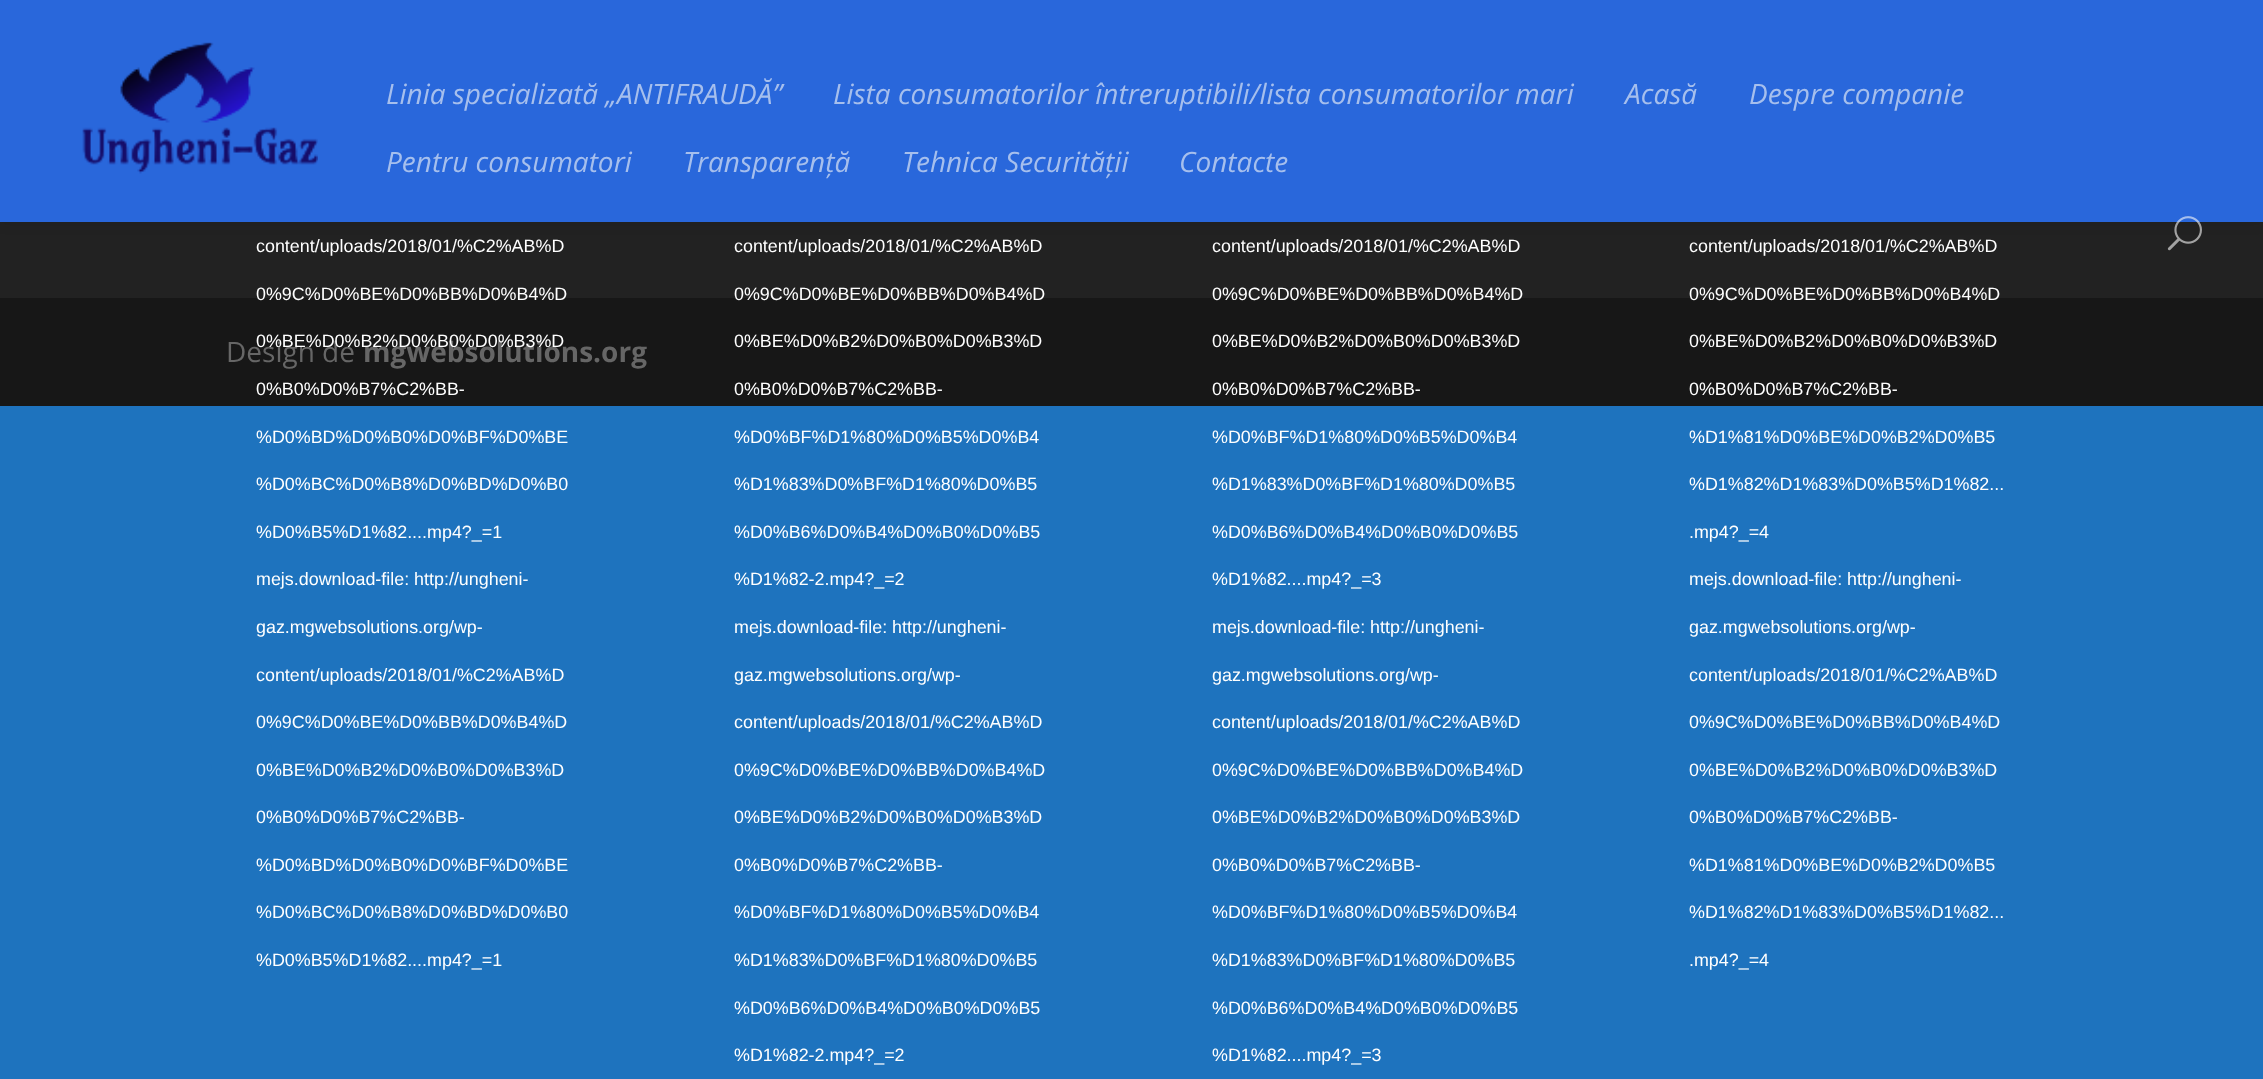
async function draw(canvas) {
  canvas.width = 2263;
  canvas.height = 1079;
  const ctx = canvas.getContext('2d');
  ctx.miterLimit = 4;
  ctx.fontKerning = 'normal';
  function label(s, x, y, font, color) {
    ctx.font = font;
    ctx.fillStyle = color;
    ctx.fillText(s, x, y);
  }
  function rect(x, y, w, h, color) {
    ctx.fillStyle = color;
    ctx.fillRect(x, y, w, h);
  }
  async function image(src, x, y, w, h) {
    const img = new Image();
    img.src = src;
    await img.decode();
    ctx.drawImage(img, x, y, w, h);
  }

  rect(0, 0, 2263, 1079, '#1e73be');
  rect(0, 222, 2263, 76, '#222');
  ctx.fillStyle = '#0000001a';
  ctx.filter = 'blur(7px)';
  ctx.beginPath();
  ctx.rect(0, 0, 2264, 222);
  ctx.fill();
  ctx.filter = 'none';
  rect(0, 0, 2263, 222, '#2967db');
  await image('assets/img1.png', 82, 42, 236, 132);
  label('Linia specializată „ANTIFRAUDĂ”', 386, 104, 'italic 28px Open Sans', '#a6bfed');
  label('Lista consumatorilor întreruptibili/lista consumatorilor mari', 833, 104, 'italic 28px Open Sans', '#a6bfed');
  label('Acasă', 1625, 104, 'italic 28px Open Sans', '#a6bfed');
  label('Despre companie', 1749, 104, 'italic 28px Open Sans', '#a6bfed');
  label('Pentru consumatori', 386, 172, 'italic 28px Open Sans', '#a6bfed');
  label('Transparență', 683, 172, 'italic 28px Open Sans', '#a6bfed');
  label('Tehnica Securității', 902, 172, 'italic 28px Open Sans', '#a6bfed');
  label('Contacte', 1179, 172, 'italic 28px Open Sans', '#a6bfed');
  await image('assets/img2.png', 2167, 216, 35, 35);
  label('content/uploads/2018/01/%C2%AB%D', 256, 252, '17.9px Liberation Sans', '#fff');
  rect(0, 298, 2263, 108, '#171717');
  label('0%9C%D0%BE%D0%BB%D0%B4%D', 256, 300, '17.9px Liberation Sans', '#fff');
  label('Design de', 226, 362, '28px Open Sans', '#666');
  label('mgwebsolutions.org', 363, 362, 'bold 28px Open Sans', '#666');
  label('0%BE%D0%B2%D0%B0%D0%B3%D', 256, 347, '17.9px Liberation Sans', '#fff');
  label('0%B0%D0%B7%C2%BB-', 256, 395, '17.9px Liberation Sans', '#fff');
  label('%D0%BD%D0%B0%D0%BF%D0%BE', 256, 443, '17.9px Liberation Sans', '#fff');
  label('%D0%BC%D0%B8%D0%BD%D0%B0', 256, 490, '17.9px Liberation Sans', '#fff');
  label('%D0%B5%D1%82....mp4?_=1', 256, 538, '17.9px Liberation Sans', '#fff');
  label('mejs.download-file: http://ungheni-', 256, 585, '17.9px Liberation Sans', '#fff');
  label('gaz.mgwebsolutions.org/wp-', 256, 633, '17.9px Liberation Sans', '#fff');
  label('content/uploads/2018/01/%C2%AB%D', 256, 681, '17.9px Liberation Sans', '#fff');
  label('0%9C%D0%BE%D0%BB%D0%B4%D', 256, 728, '17.9px Liberation Sans', '#fff');
  label('0%BE%D0%B2%D0%B0%D0%B3%D', 256, 776, '17.9px Liberation Sans', '#fff');
  label('0%B0%D0%B7%C2%BB-', 256, 823, '17.9px Liberation Sans', '#fff');
  label('%D0%BD%D0%B0%D0%BF%D0%BE', 256, 871, '17.9px Liberation Sans', '#fff');
  label('%D0%BC%D0%B8%D0%BD%D0%B0', 256, 918, '17.9px Liberation Sans', '#fff');
  label('%D0%B5%D1%82....mp4?_=1', 256, 966, '17.9px Liberation Sans', '#fff');
  label('content/uploads/2018/01/%C2%AB%D', 734, 252, '17.9px Liberation Sans', '#fff');
  label('0%9C%D0%BE%D0%BB%D0%B4%D', 734, 300, '17.9px Liberation Sans', '#fff');
  label('0%BE%D0%B2%D0%B0%D0%B3%D', 734, 347, '17.9px Liberation Sans', '#fff');
  label('0%B0%D0%B7%C2%BB-', 734, 395, '17.9px Liberation Sans', '#fff');
  label('%D0%BF%D1%80%D0%B5%D0%B4', 734, 443, '17.9px Liberation Sans', '#fff');
  label('%D1%83%D0%BF%D1%80%D0%B5', 734, 490, '17.9px Liberation Sans', '#fff');
  label('%D0%B6%D0%B4%D0%B0%D0%B5', 734, 538, '17.9px Liberation Sans', '#fff');
  label('%D1%82-2.mp4?_=2', 734, 585, '17.9px Liberation Sans', '#fff');
  label('mejs.download-file: http://ungheni-', 734, 633, '17.9px Liberation Sans', '#fff');
  label('gaz.mgwebsolutions.org/wp-', 734, 681, '17.9px Liberation Sans', '#fff');
  label('content/uploads/2018/01/%C2%AB%D', 734, 728, '17.9px Liberation Sans', '#fff');
  label('0%9C%D0%BE%D0%BB%D0%B4%D', 734, 776, '17.9px Liberation Sans', '#fff');
  label('0%BE%D0%B2%D0%B0%D0%B3%D', 734, 823, '17.9px Liberation Sans', '#fff');
  label('0%B0%D0%B7%C2%BB-', 734, 871, '17.9px Liberation Sans', '#fff');
  label('%D0%BF%D1%80%D0%B5%D0%B4', 734, 918, '17.9px Liberation Sans', '#fff');
  label('%D1%83%D0%BF%D1%80%D0%B5', 734, 966, '17.9px Liberation Sans', '#fff');
  label('%D0%B6%D0%B4%D0%B0%D0%B5', 734, 1014, '17.9px Liberation Sans', '#fff');
  label('%D1%82-2.mp4?_=2', 734, 1061, '17.9px Liberation Sans', '#fff');
  label('content/uploads/2018/01/%C2%AB%D', 1212, 252, '17.9px Liberation Sans', '#fff');
  label('0%9C%D0%BE%D0%BB%D0%B4%D', 1212, 300, '17.9px Liberation Sans', '#fff');
  label('0%BE%D0%B2%D0%B0%D0%B3%D', 1212, 347, '17.9px Liberation Sans', '#fff');
  label('0%B0%D0%B7%C2%BB-', 1212, 395, '17.9px Liberation Sans', '#fff');
  label('%D0%BF%D1%80%D0%B5%D0%B4', 1212, 443, '17.9px Liberation Sans', '#fff');
  label('%D1%83%D0%BF%D1%80%D0%B5', 1212, 490, '17.9px Liberation Sans', '#fff');
  label('%D0%B6%D0%B4%D0%B0%D0%B5', 1212, 538, '17.9px Liberation Sans', '#fff');
  label('%D1%82....mp4?_=3', 1212, 585, '17.9px Liberation Sans', '#fff');
  label('mejs.download-file: http://ungheni-', 1212, 633, '17.9px Liberation Sans', '#fff');
  label('gaz.mgwebsolutions.org/wp-', 1212, 681, '17.9px Liberation Sans', '#fff');
  label('content/uploads/2018/01/%C2%AB%D', 1212, 728, '17.9px Liberation Sans', '#fff');
  label('0%9C%D0%BE%D0%BB%D0%B4%D', 1212, 776, '17.9px Liberation Sans', '#fff');
  label('0%BE%D0%B2%D0%B0%D0%B3%D', 1212, 823, '17.9px Liberation Sans', '#fff');
  label('0%B0%D0%B7%C2%BB-', 1212, 871, '17.9px Liberation Sans', '#fff');
  label('%D0%BF%D1%80%D0%B5%D0%B4', 1212, 918, '17.9px Liberation Sans', '#fff');
  label('%D1%83%D0%BF%D1%80%D0%B5', 1212, 966, '17.9px Liberation Sans', '#fff');
  label('%D0%B6%D0%B4%D0%B0%D0%B5', 1212, 1014, '17.9px Liberation Sans', '#fff');
  label('%D1%82....mp4?_=3', 1212, 1061, '17.9px Liberation Sans', '#fff');
  label('content/uploads/2018/01/%C2%AB%D', 1689, 252, '17.9px Liberation Sans', '#fff');
  label('0%9C%D0%BE%D0%BB%D0%B4%D', 1689, 300, '17.9px Liberation Sans', '#fff');
  label('0%BE%D0%B2%D0%B0%D0%B3%D', 1689, 347, '17.9px Liberation Sans', '#fff');
  label('0%B0%D0%B7%C2%BB-', 1689, 395, '17.9px Liberation Sans', '#fff');
  label('%D1%81%D0%BE%D0%B2%D0%B5', 1689, 443, '17.9px Liberation Sans', '#fff');
  label('%D1%82%D1%83%D0%B5%D1%82...', 1689, 490, '17.9px Liberation Sans', '#fff');
  label('.mp4?_=4', 1689, 538, '17.9px Liberation Sans', '#fff');
  label('mejs.download-file: http://ungheni-', 1689, 585, '17.9px Liberation Sans', '#fff');
  label('gaz.mgwebsolutions.org/wp-', 1689, 633, '17.9px Liberation Sans', '#fff');
  label('content/uploads/2018/01/%C2%AB%D', 1689, 681, '17.9px Liberation Sans', '#fff');
  label('0%9C%D0%BE%D0%BB%D0%B4%D', 1689, 728, '17.9px Liberation Sans', '#fff');
  label('0%BE%D0%B2%D0%B0%D0%B3%D', 1689, 776, '17.9px Liberation Sans', '#fff');
  label('0%B0%D0%B7%C2%BB-', 1689, 823, '17.9px Liberation Sans', '#fff');
  label('%D1%81%D0%BE%D0%B2%D0%B5', 1689, 871, '17.9px Liberation Sans', '#fff');
  label('%D1%82%D1%83%D0%B5%D1%82...', 1689, 918, '17.9px Liberation Sans', '#fff');
  label('.mp4?_=4', 1689, 966, '17.9px Liberation Sans', '#fff');
}

draw(document.querySelector('canvas'));
